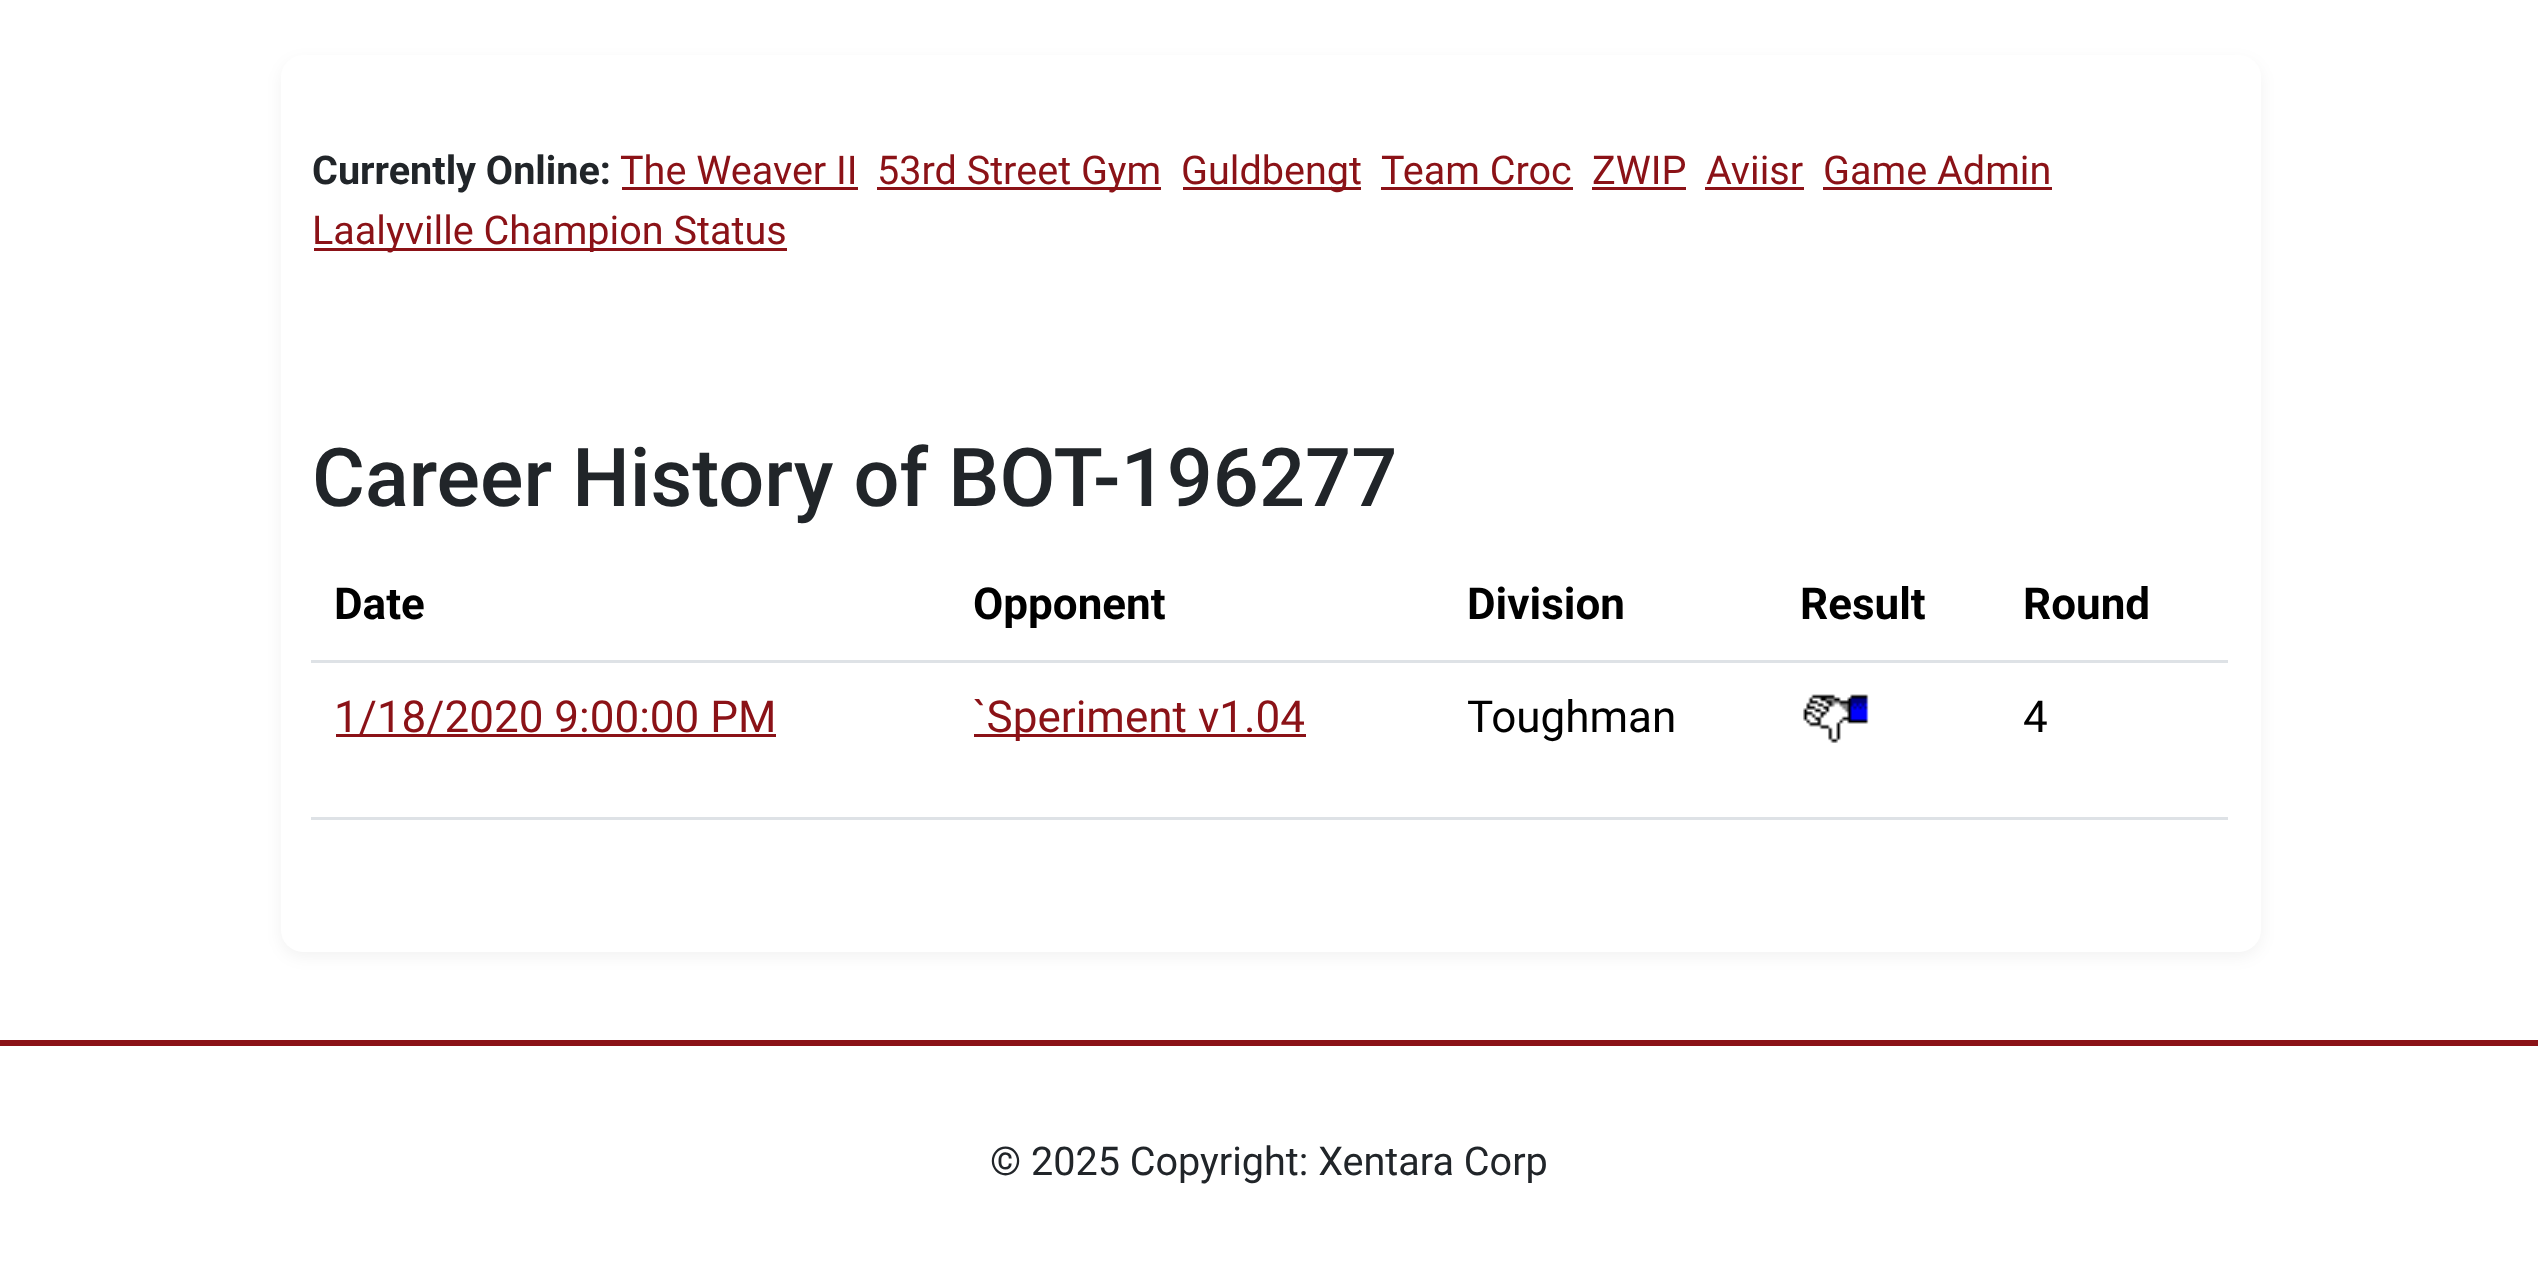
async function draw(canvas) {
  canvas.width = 2538;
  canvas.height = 1281;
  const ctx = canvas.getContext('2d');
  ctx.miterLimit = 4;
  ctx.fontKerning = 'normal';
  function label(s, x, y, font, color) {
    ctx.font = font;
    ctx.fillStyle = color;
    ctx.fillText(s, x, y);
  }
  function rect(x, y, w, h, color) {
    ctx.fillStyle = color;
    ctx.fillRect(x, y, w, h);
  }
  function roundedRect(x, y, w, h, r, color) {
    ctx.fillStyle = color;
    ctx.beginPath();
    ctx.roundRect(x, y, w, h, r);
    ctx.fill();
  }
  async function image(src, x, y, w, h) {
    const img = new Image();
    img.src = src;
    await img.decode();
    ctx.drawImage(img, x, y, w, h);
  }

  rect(0, 0, 2538, 1281, '#fff');
  ctx.fillStyle = '#0000000d';
  ctx.filter = 'blur(8px)';
  ctx.beginPath();
  ctx.roundRect(281, 61, 1980, 896, 22);
  ctx.fill();
  ctx.filter = 'none';
  roundedRect(281, 55, 1980, 897, 22, '#fff');
  label('Currently Online:', 312, 184, 'bold 39.6px Roboto', '#212529');
  label('The Weaver II', 620, 184, '39.6px Roboto', '#8b1217');
  rect(622, 187, 236, 3, '#8b1217');
  rect(877, 187, 284, 3, '#8b1217');
  label('53rd Street Gym', 877, 184, '39.6px Roboto', '#8b1217');
  rect(1183, 187, 178, 3, '#8b1217');
  label('Guldbengt', 1181, 184, '39.6px Roboto', '#8b1217');
  label('Team Croc', 1381, 184, '39.6px Roboto', '#8b1217');
  rect(1381, 187, 192, 3, '#8b1217');
  label('ZWIP', 1592, 184, '39.6px Roboto', '#8b1217');
  rect(1592, 187, 94, 3, '#8b1217');
  label('Aviisr', 1706, 184, '39.6px Roboto', '#8b1217');
  rect(1705, 187, 99, 3, '#8b1217');
  label('Game Admin', 1823, 184, '39.6px Roboto', '#8b1217');
  rect(1823, 187, 229, 3, '#8b1217');
  rect(314, 248, 473, 3, '#8b1217');
  label('Laalyville Champion Status', 312, 244, '39.6px Roboto', '#8b1217');
  label('Career History of BOT-196277', 312, 506, '500 81.1px Roboto', '#212529');
  label('Date', 334, 619, 'bold 44px Roboto', '#000');
  label('Opponent', 973, 619, 'bold 44px Roboto', '#000');
  label('Division', 1467, 619, 'bold 44px Roboto', '#000');
  label('Result', 1800, 619, 'bold 44px Roboto', '#000');
  rect(311, 660, 1917, 3, '#dee2e6');
  label('Round', 2023, 619, 'bold 44px Roboto', '#000');
  rect(336, 734, 440, 3, '#8b1217');
  label('1/18/2020 9:00:00 PM', 334, 732, '44px Roboto', '#8b1217');
  rect(974, 734, 332, 3, '#8b1217');
  label('`Speriment v1.04', 973, 732, '44px Roboto', '#8b1217');
  label('Toughman', 1467, 732, '44px Roboto', '#000');
  await image('assets/img1.png', 1803, 694, 66, 49);
  rect(311, 817, 1917, 3, '#dee2e6');
  label('4', 2023, 732, '44px Roboto', '#000');
  rect(0, 1040, 2538, 6, '#8b1217');
  label('© 2025 Copyright: Xentara Corp', 990, 1175, '39.6px Roboto', '#212529');
}

draw(document.querySelector('canvas'));
